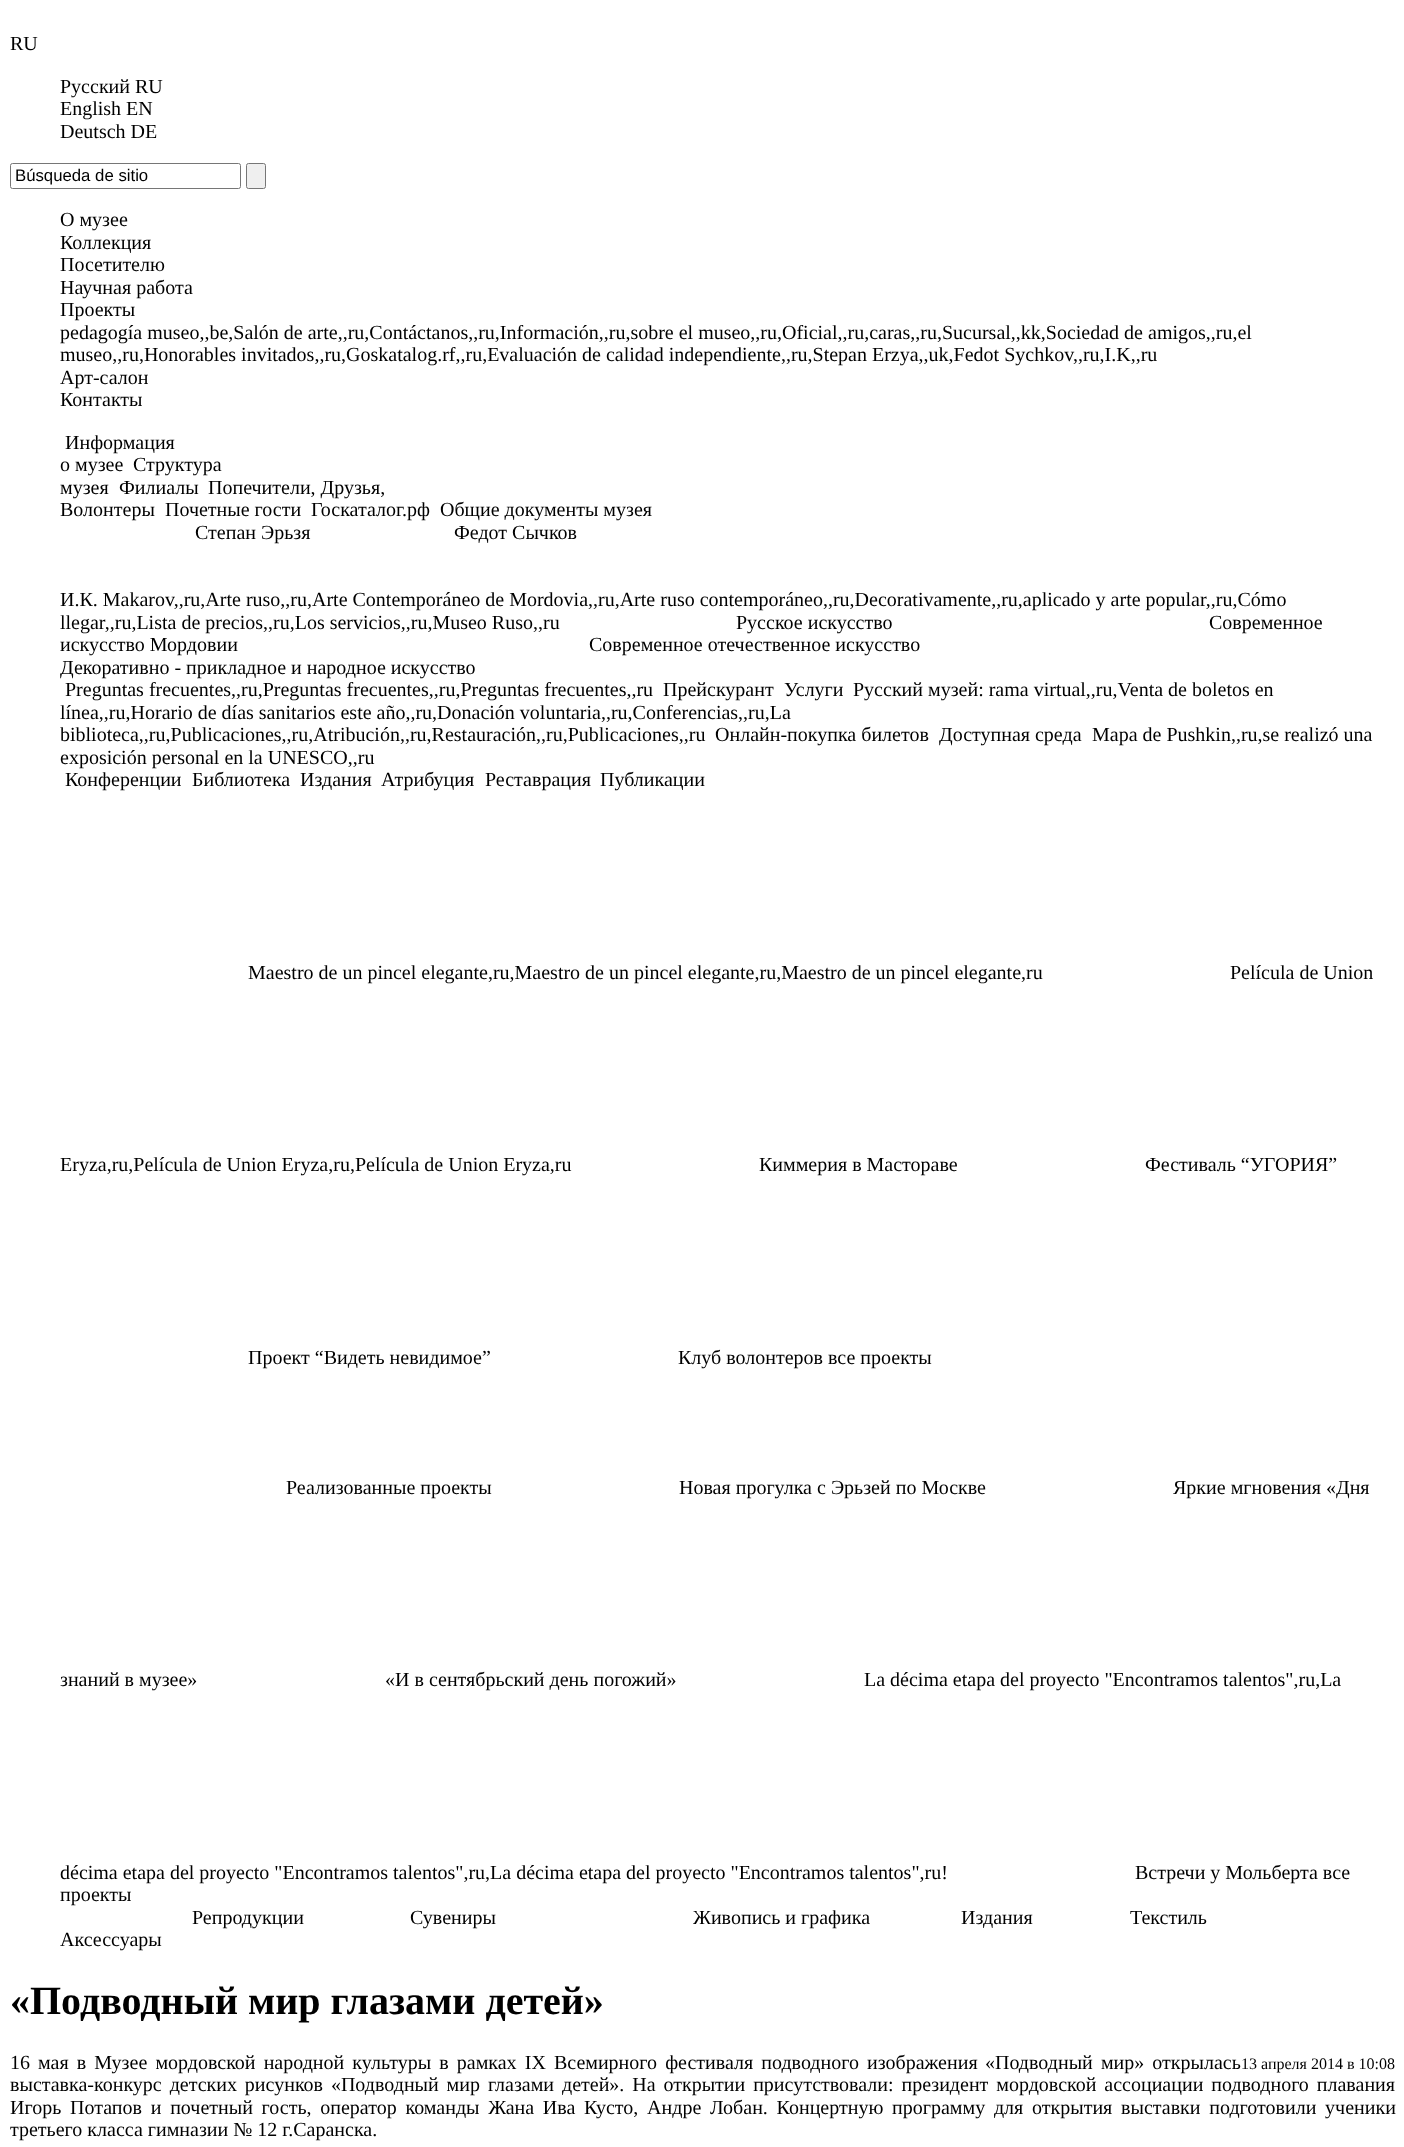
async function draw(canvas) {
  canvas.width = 1404;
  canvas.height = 2147;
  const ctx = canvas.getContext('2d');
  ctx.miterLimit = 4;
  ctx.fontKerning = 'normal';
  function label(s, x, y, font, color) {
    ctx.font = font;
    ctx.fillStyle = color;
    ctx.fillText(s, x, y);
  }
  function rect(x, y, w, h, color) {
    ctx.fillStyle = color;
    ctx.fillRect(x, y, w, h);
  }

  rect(0, 0, 1404, 2147, '#fff');
  label('RU', 10, 50, '20px Liberation Serif', '#000');
  label('Русский RU', 60, 93, '20px Liberation Serif', '#000');
  label('English EN', 60, 115, '20px Liberation Serif', '#000');
  label('Deutsch DE', 60, 138, '20px Liberation Serif', '#000');
  ctx.beginPath();
  ctx.roundRect(10.5, 163.5, 230, 25, 2);
  ctx.strokeStyle = '#767676';
  ctx.stroke();
  label('Búsqueda de sitio', 15, 181, '16.75px Liberation Sans', '#000');
  ctx.fillStyle = '#efefef';
  ctx.beginPath();
  ctx.roundRect(246.5, 163.5, 19, 25, 2);
  ctx.fill();
  ctx.stroke();
  label('О музее', 60, 226, '20px Liberation Serif', '#000');
  label('Коллекция', 60, 249, '20px Liberation Serif', '#000');
  label('Посетителю', 60, 271, '20px Liberation Serif', '#000');
  label('Научная работа', 60, 294, '20px Liberation Serif', '#000');
  label('Проекты', 60, 316, '20px Liberation Serif', '#000');
  label('pedagogía museo,,be,Salón de arte,,ru,Contáctanos,,ru,Información,,ru,sobre el museo,,ru,Oficial,,ru,caras,,ru,Sucursal,,kk,Sociedad de amigos,,ru,el', 60, 339, '20px Liberation Serif', '#000');
  label('museo,,ru,Honorables invitados,,ru,Goskatalog.rf,,ru,Evaluación de calidad independiente,,ru,Stepan Erzya,,uk,Fedot Sychkov,,ru,I.K,,ru', 60, 361, '20px Liberation Serif', '#000');
  label('Арт-салон', 60, 384, '20px Liberation Serif', '#000');
  label('Контакты', 60, 406, '20px Liberation Serif', '#000');
  label('Информация', 65, 449, '20px Liberation Serif', '#000');
  label('о музее', 60, 471, '20px Liberation Serif', '#000');
  label('Структура', 133, 471, '20px Liberation Serif', '#000');
  label('музея', 60, 494, '20px Liberation Serif', '#000');
  label('Филиалы', 119, 494, '20px Liberation Serif', '#000');
  label('Попечители, Друзья,', 208, 494, '20px Liberation Serif', '#000');
  label('Волонтеры', 60, 516, '20px Liberation Serif', '#000');
  label('Почетные гости', 165, 516, '20px Liberation Serif', '#000');
  label('Госкаталог.рф', 311, 516, '20px Liberation Serif', '#000');
  label('Общие документы музея', 440, 516, '20px Liberation Serif', '#000');
  label('Степан Эрьзя', 195, 539, '20px Liberation Serif', '#000');
  label('Федот Сычков', 454, 539, '20px Liberation Serif', '#000');
  label('И.К. Makarov,,ru,Arte ruso,,ru,Arte Contemporáneo de Mordovia,,ru,Arte ruso contemporáneo,,ru,Decorativamente,,ru,aplicado y arte popular,,ru,Cómo', 60, 606, '20px Liberation Serif', '#000');
  label('llegar,,ru,Lista de precios,,ru,Los servicios,,ru,Museo Ruso,,ru', 60, 629, '20px Liberation Serif', '#000');
  label('Русское искусство', 736, 629, '20px Liberation Serif', '#000');
  label('Современное', 1209, 629, '20px Liberation Serif', '#000');
  label('искусство Мордовии', 60, 651, '20px Liberation Serif', '#000');
  label('Современное отечественное искусство', 589, 651, '20px Liberation Serif', '#000');
  label('Декоративно - прикладное и народное искусство', 60, 674, '20px Liberation Serif', '#000');
  label('Preguntas frecuentes,,ru,Preguntas frecuentes,,ru,Preguntas frecuentes,,ru', 65, 696, '20px Liberation Serif', '#000');
  label('Прейскурант', 663, 696, '20px Liberation Serif', '#000');
  label('Услуги', 784, 696, '20px Liberation Serif', '#000');
  label('Русский музей: rama virtual,,ru,Venta de boletos en', 853, 696, '20px Liberation Serif', '#000');
  label('línea,,ru,Horario de días sanitarios este año,,ru,Donación voluntaria,,ru,Conferencias,,ru,La', 60, 719, '20px Liberation Serif', '#000');
  label('biblioteca,,ru,Publicaciones,,ru,Atribución,,ru,Restauración,,ru,Publicaciones,,ru', 60, 741, '20px Liberation Serif', '#000');
  label('Онлайн-покупка билетов', 715, 741, '20px Liberation Serif', '#000');
  label('Доступная среда', 939, 741, '20px Liberation Serif', '#000');
  label('Mapa de Pushkin,,ru,se realizó una', 1092, 741, '20px Liberation Serif', '#000');
  label('exposición personal en la UNESCO,,ru', 60, 764, '20px Liberation Serif', '#000');
  label('Конференции', 65, 786, '20px Liberation Serif', '#000');
  label('Библиотека', 192, 786, '20px Liberation Serif', '#000');
  label('Издания', 300, 786, '20px Liberation Serif', '#000');
  label('Атрибуция', 381, 786, '20px Liberation Serif', '#000');
  label('Реставрация', 485, 786, '20px Liberation Serif', '#000');
  label('Публикации', 600, 786, '20px Liberation Serif', '#000');
  label('Maestro de un pincel elegante,ru,Maestro de un pincel elegante,ru,Maestro de un pincel elegante,ru', 248, 979, '20px Liberation Serif', '#000');
  label('Película de Union', 1230, 979, '20px Liberation Serif', '#000');
  label('Eryza,ru,Película de Union Eryza,ru,Película de Union Eryza,ru', 60, 1171, '20px Liberation Serif', '#000');
  label('Киммерия в Мастораве', 759, 1171, '20px Liberation Serif', '#000');
  label('Фестиваль “УГОРИЯ”', 1145, 1171, '20px Liberation Serif', '#000');
  label('Проект “Видеть невидимое”', 248, 1364, '20px Liberation Serif', '#000');
  label('Клуб волонтеров все проекты', 678, 1364, '20px Liberation Serif', '#000');
  label('Реализованные проекты', 286, 1494, '20px Liberation Serif', '#000');
  label('Новая прогулка с Эрьзей по Москве', 679, 1494, '20px Liberation Serif', '#000');
  label('Яркие мгновения «Дня', 1173, 1494, '20px Liberation Serif', '#000');
  label('знаний в музее»', 60, 1686, '20px Liberation Serif', '#000');
  label('«И в сентябрьский день погожий»', 385, 1686, '20px Liberation Serif', '#000');
  label('La décima etapa del proyecto "Encontramos talentos",ru,La', 864, 1686, '20px Liberation Serif', '#000');
  label('décima etapa del proyecto "Encontramos talentos",ru,La décima etapa del proyecto "Encontramos talentos",ru!', 60, 1879, '20px Liberation Serif', '#000');
  label('Встречи у Мольберта все', 1135, 1879, '20px Liberation Serif', '#000');
  label('проекты', 60, 1901, '20px Liberation Serif', '#000');
  label('Репродукции', 192, 1924, '20px Liberation Serif', '#000');
  label('Сувениры', 410, 1924, '20px Liberation Serif', '#000');
  label('Живопись и графика', 693, 1924, '20px Liberation Serif', '#000');
  label('Издания', 961, 1924, '20px Liberation Serif', '#000');
  label('Текстиль', 1130, 1924, '20px Liberation Serif', '#000');
  label('Аксессуары', 60, 1946, '20px Liberation Serif', '#000');
  label('«Подводный мир глазами детей»', 10, 2014, 'bold 40px Liberation Serif', '#000');
  ctx.wordSpacing = '3.1px';
  label('16 мая в Музее мордовской народной культуры в рамках IX Всемирного фестиваля подводного изображения', 10, 2069, '20px Liberation Serif', '#000');
  label('«Подводный мир» открылась', 985, 2069, '20px Liberation Serif', '#000');
  ctx.wordSpacing = '2.9px';
  label('выставка-конкурс детских рисунков «Подводный мир глазами детей». На открытии присутствовали: президент мордовской ассоциации подводного плавания', 10, 2091, '20px Liberation Serif', '#000');
  ctx.wordSpacing = '3.75px';
  label('Игорь Потапов и почетный гость, оператор команды Жана Ива Кусто, Андре Лобан. Концертную программу для открытия выставки подготовили ученики', 10, 2114, '20px Liberation Serif', '#000');
  ctx.wordSpacing = '0px';
  label('третьего класса гимназии № 12 г.Саранска.', 10, 2136, '20px Liberation Serif', '#000');
  label('13 апреля 2014 в 10:08', 1241, 2069, '16px Liberation Serif', '#000');
}

draw(document.querySelector('canvas'));
